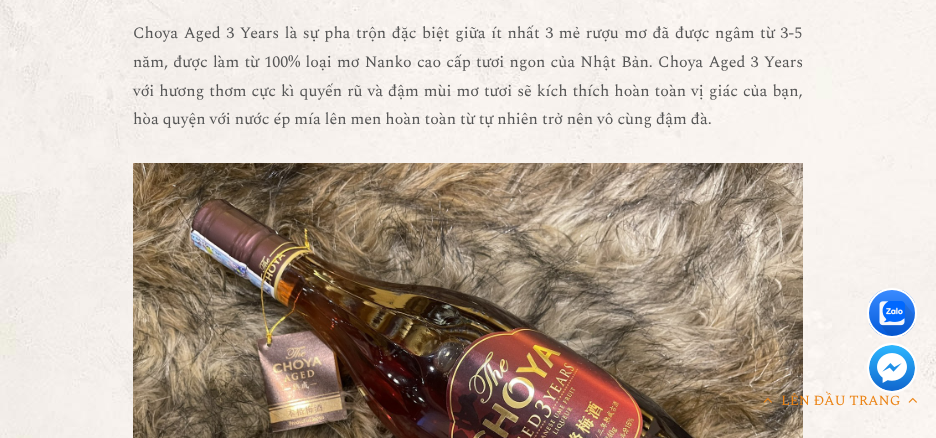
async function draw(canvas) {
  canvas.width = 936;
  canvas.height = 438;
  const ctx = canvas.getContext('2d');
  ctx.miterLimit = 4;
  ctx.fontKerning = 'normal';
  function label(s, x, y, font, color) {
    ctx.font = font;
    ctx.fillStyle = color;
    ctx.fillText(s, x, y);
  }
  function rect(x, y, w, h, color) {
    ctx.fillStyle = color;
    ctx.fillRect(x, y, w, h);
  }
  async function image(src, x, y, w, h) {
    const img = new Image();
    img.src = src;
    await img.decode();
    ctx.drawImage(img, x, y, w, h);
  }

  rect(0, 0, 936, 438, '#fff');
  await image('assets/img1.png', 0, 0, 936, 438);
  ctx.wordSpacing = '1.6px';
  label('Choya Aged 3 Years là sự pha trộn đặc biệt giữa ít nhất 3 mẻ rượu mơ đã được ngâm từ 3-5', 133, 38, '16px Spectral', '#555');
  ctx.wordSpacing = '1.25px';
  label('năm, được làm từ 100% loại mơ Nanko cao cấp tươi ngon của Nhật Bản. Choya Aged 3 Years', 133, 67, '16px Spectral', '#555');
  ctx.wordSpacing = '1px';
  label('với hương thơm cực kì quyến rũ và đậm mùi mơ tươi sẽ kích thích hoàn toàn vị giác của bạn,', 133, 96, '16px Spectral', '#555');
  ctx.wordSpacing = '0px';
  label('hòa quyện với nước ép mía lên men hoàn toàn từ tự nhiên trở nên vô cùng đậm đà.', 133, 124, '16px Spectral', '#555');
  await image('assets/img2.png', 133, 163, 670, 275);
  await image('assets/img3.png', 869, 290, 46, 46);
  ctx.beginPath();
  ctx.arc(892, 313, 24, 0, 2 * Math.PI);
  ctx.strokeStyle = '#fff';
  ctx.lineWidth = 2;
  ctx.stroke();
  await image('assets/img4.png', 869, 345, 46, 46);
  label('LÊN ĐẦU TRANG', 781, 405, '14px Spectral', '#eb8314');
  ctx.beginPath();
  ctx.arc(892, 368, 24, 0, 2 * Math.PI);
  ctx.stroke();
  await image('assets/img5.png', 763, 398, 9, 5);
  await image('assets/img6.png', 908, 397, 9, 6);
}

draw(document.querySelector('canvas'));
